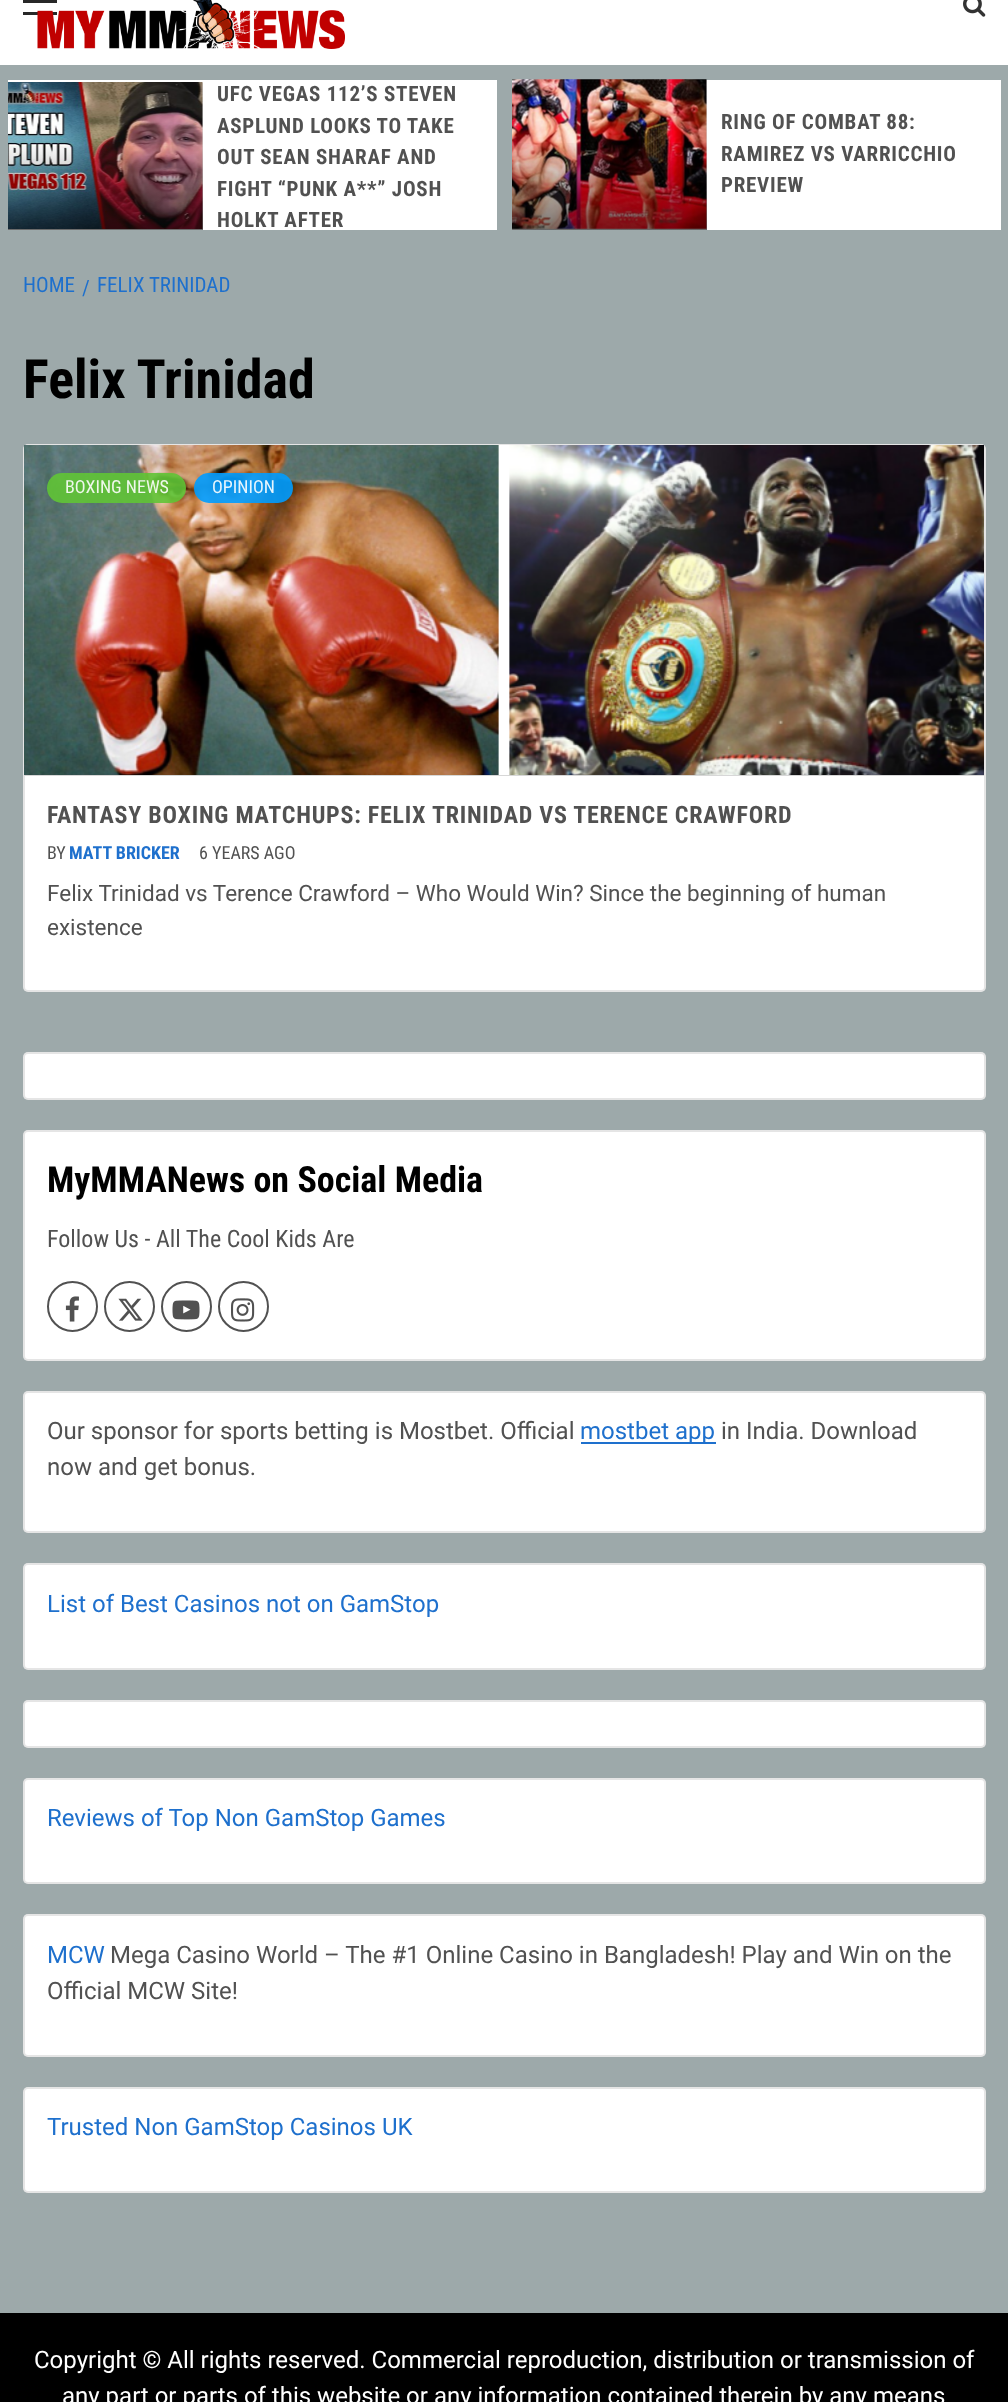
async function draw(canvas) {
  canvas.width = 1008;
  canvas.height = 2402;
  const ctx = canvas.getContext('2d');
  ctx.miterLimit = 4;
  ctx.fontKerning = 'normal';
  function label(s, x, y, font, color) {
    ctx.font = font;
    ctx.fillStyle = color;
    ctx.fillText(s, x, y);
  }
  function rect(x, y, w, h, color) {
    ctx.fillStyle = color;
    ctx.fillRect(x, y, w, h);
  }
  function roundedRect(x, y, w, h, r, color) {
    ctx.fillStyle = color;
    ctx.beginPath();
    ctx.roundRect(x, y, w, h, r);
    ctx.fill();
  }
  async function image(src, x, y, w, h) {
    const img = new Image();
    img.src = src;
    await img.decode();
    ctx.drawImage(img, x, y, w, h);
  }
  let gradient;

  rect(0, 0, 1008, 2402, '#9da9aa');
  rect(0, 0, 1008, 65, '#fff');
  rect(23, 0, 34, 3, '#282828');
  rect(23, 12, 34, 3, '#282828');
  await image('assets/img1.png', 37, 0, 308, 49);
  await image('assets/img2.png', 963, 0, 23, 17);
  rect(8, 80, 489, 150, '#fff');
  rect(8, 83, 195, 147, '#d7d7d7');
  await image('assets/img3.png', 8, 82, 195, 147);
  gradient = ctx.createLinearGradient(105, 82, 105, 233);
  gradient.addColorStop(0.4, '#00000000');
  gradient.addColorStop(1, '#00000085');
  ctx.fillStyle = gradient;
  ctx.fillRect(8, 146, 195, 84);
  ctx.letterSpacing = '0.75px';
  label('UFC VEGAS 112’S STEVEN', 217, 101, 'bold 21px Roboto Condensed', '#515151');
  label('ASPLUND LOOKS TO TAKE', 217, 133, 'bold 21px Roboto Condensed', '#515151');
  label('OUT SEAN SHARAF AND', 217, 164, 'bold 21px Roboto Condensed', '#515151');
  label('FIGHT “PUNK A**” JOSH', 217, 196, 'bold 21px Roboto Condensed', '#515151');
  label('HOLKT AFTER', 217, 227, 'bold 21px Roboto Condensed', '#515151');
  rect(707, 80, 294, 150, '#fff');
  rect(512, 80, 195, 150, '#d7d7d7');
  await image('assets/img4.png', 512, 79, 195, 150);
  gradient = ctx.createLinearGradient(609, 79, 609, 230);
  gradient.addColorStop(0.4, '#00000000');
  gradient.addColorStop(1, '#00000085');
  ctx.fillStyle = gradient;
  ctx.fillRect(512, 143, 195, 87);
  label('RING OF COMBAT 88:', 721, 129, 'bold 21px Roboto Condensed', '#515151');
  label('RAMIREZ VS VARRICCHIO', 721, 161, 'bold 21px Roboto Condensed', '#515151');
  label('PREVIEW', 721, 192, 'bold 21px Roboto Condensed', '#515151');
  ctx.letterSpacing = '0px';
  label('HOME', 23, 292, '21px Roboto Condensed', '#1e70cd');
  label('/', 82, 295, '21px Roboto Condensed', '#1e70cd');
  label('FELIX TRINIDAD', 97, 292, '21px Roboto Condensed', '#1e70cd');
  label('Felix Trinidad', 23, 398, 'bold 54px Roboto Condensed', '#000');
  roundedRect(23, 444, 963, 548, 5, '#fff');
  ctx.beginPath();
  ctx.roundRect(24, 445, 961, 546, 4);
  ctx.strokeStyle = '#0001011a';
  ctx.lineWidth = 2;
  ctx.stroke();
  rect(24, 775, 960, 1, '#d7d7d7');
  await image('assets/img5.png', 24, 445, 960, 330);
  roundedRect(47, 473, 139, 30, 15, '#61c436e6');
  label('BOXING NEWS', 65, 493, '18px Roboto Condensed', '#eff8eb');
  roundedRect(194, 473, 99, 30, 15, '#009cffe6');
  label('OPINION', 212, 493, '18px Roboto Condensed', '#e7f5fd');
  ctx.letterSpacing = '0.75px';
  label('FANTASY BOXING MATCHUPS: FELIX TRINIDAD VS TERENCE CRAWFORD', 47, 823, 'bold 24px Roboto Condensed', '#515151');
  ctx.letterSpacing = '0px';
  label('BY', 47, 859, '18px Roboto Condensed', '#515151');
  label('MATT BRICKER', 69, 859, 'bold 18px Roboto Condensed', '#1e70cd');
  label('6 YEARS AGO', 199, 859, '18px Roboto Condensed', '#515151');
  label('Felix Trinidad vs Terence Crawford – Who Would Win? Since the beginning of human', 47, 901, '22.5px Roboto', '#515151');
  label('existence', 47, 935, '22.5px Roboto', '#515151');
  roundedRect(23, 1052, 963, 48, 5, '#fff');
  ctx.beginPath();
  ctx.roundRect(24, 1053, 961, 46, 4);
  ctx.stroke();
  roundedRect(23, 1130, 963, 231, 5, '#fff');
  ctx.beginPath();
  ctx.roundRect(24, 1131, 961, 229, 4);
  ctx.stroke();
  label('MyMMANews on Social Media', 47, 1192, 'bold 36px Roboto Condensed', '#000');
  label('Follow Us - All The Cool Kids Are', 47, 1247, '24px Roboto Condensed', '#515151');
  ctx.beginPath();
  ctx.arc(72.5, 1306.5, 24.5, 0, 2 * Math.PI);
  ctx.strokeStyle = '#515151';
  ctx.stroke();
  await image('assets/img6.png', 65, 1296, 14, 26);
  ctx.beginPath();
  ctx.arc(129.5, 1306.5, 24.5, 0, 2 * Math.PI);
  ctx.stroke();
  await image('assets/img7.png', 118, 1298, 25, 23);
  ctx.beginPath();
  ctx.arc(186.5, 1306.5, 24.5, 0, 2 * Math.PI);
  ctx.stroke();
  await image('assets/img8.png', 172, 1300, 28, 20);
  ctx.beginPath();
  ctx.arc(243.5, 1306.5, 24.5, 0, 2 * Math.PI);
  ctx.stroke();
  await image('assets/img9.png', 231, 1298, 24, 24);
  roundedRect(23, 1391, 963, 142, 5, '#fff');
  ctx.beginPath();
  ctx.roundRect(24, 1392, 961, 140, 4);
  ctx.strokeStyle = '#0001011a';
  ctx.stroke();
  label('Our sponsor for sports betting is Mostbet. Official', 47, 1439, '24px Roboto', '#515151');
  rect(581, 1442, 135, 2, '#1e70cd');
  label('mostbet app', 580, 1439, '24px Roboto', '#1e70cd');
  label('in India. Download', 721, 1439, '24px Roboto', '#515151');
  label('now and get bonus.', 47, 1475, '24px Roboto', '#515151');
  roundedRect(23, 1563, 963, 107, 5, '#fff');
  ctx.beginPath();
  ctx.roundRect(24, 1564, 961, 105, 4);
  ctx.stroke();
  label('List of Best Casinos not on GamStop', 47, 1612, '24px Roboto', '#1e70cd');
  roundedRect(23, 1700, 963, 48, 5, '#fff');
  ctx.beginPath();
  ctx.roundRect(24, 1701, 961, 46, 4);
  ctx.stroke();
  roundedRect(23, 1778, 963, 106, 5, '#fff');
  ctx.beginPath();
  ctx.roundRect(24, 1779, 961, 104, 4);
  ctx.stroke();
  label('Reviews of Top Non GamStop Games', 47, 1826, '24px Roboto', '#1e70cd');
  roundedRect(23, 1914, 963, 143, 5, '#fff');
  ctx.beginPath();
  ctx.roundRect(24, 1915, 961, 141, 4);
  ctx.stroke();
  label('MCW', 47, 1963, '24px Roboto', '#1e70cd');
  label('Mega Casino World – The #1 Online Casino in Bangladesh! Play and Win on the', 110, 1963, '24px Roboto', '#515151');
  label('Official MCW Site!', 47, 1999, '24px Roboto', '#515151');
  roundedRect(23, 2087, 963, 106, 5, '#fff');
  ctx.beginPath();
  ctx.roundRect(24, 2088, 961, 104, 4);
  ctx.stroke();
  label('Trusted Non GamStop Casinos UK', 47, 2135, '24px Roboto', '#1e70cd');
  rect(0, 2313, 1008, 89, '#000');
  label('Copyright © All rights reserved. Commercial reproduction, distribution or transmission of', 34, 2368, '24px Roboto', '#fff');
  label('any part or parts of this website or any information contained therein by any means', 62, 2404, '24px Roboto', '#fff');
}

draw(document.querySelector('canvas'));
